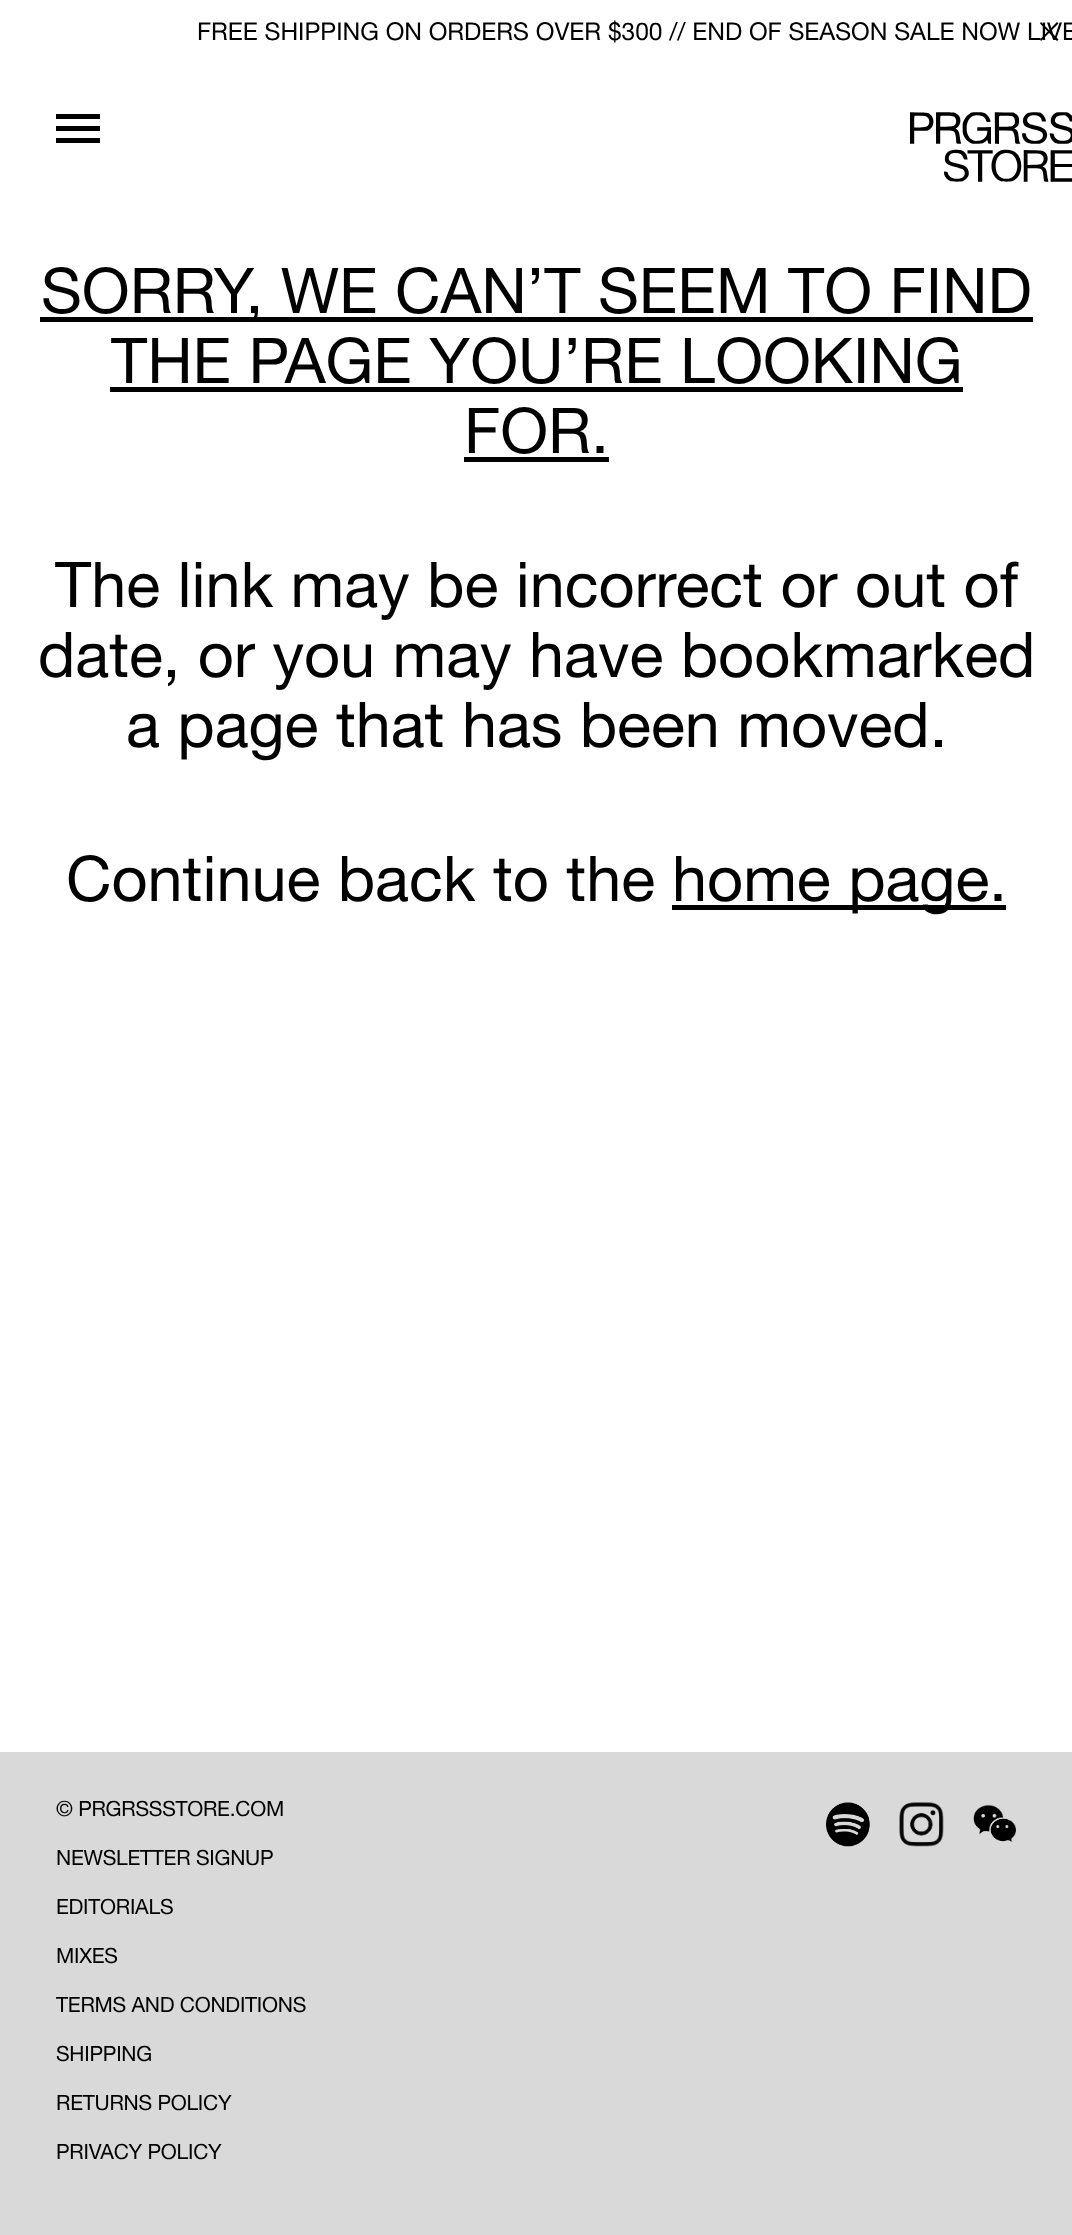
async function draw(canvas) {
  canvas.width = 1072;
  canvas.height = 2235;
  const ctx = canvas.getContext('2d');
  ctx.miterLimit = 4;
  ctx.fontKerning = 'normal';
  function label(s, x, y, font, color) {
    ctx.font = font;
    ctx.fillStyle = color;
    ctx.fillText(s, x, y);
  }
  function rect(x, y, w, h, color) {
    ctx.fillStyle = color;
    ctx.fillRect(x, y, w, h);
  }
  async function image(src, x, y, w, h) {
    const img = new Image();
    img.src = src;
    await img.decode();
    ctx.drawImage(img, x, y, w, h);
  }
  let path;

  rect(0, 0, 1072, 2235, '#fff');
  label('FREE SHIPPING ON ORDERS OVER $300 // END OF SEASON SALE NOW LIVE', 197, 40, '24.5px Helvetica Neue', '#000');
  path = new Path2D('M1057 22L1058.5 23.5L1041 41L1040 39.5Z');
  ctx.fill(path);
  path = new Path2D('M1058.5 39.5L1057 41L1040 23.5L1041 22Z');
  ctx.fill(path);
  rect(56, 138, 44, 5, '#000');
  rect(56, 114, 44, 5, '#000');
  rect(56, 126, 44, 5, '#000');
  await image('assets/img1.png', 910, 112, 162, 70);
  rect(40, 317, 993, 5, '#000');
  label('SORRY, WE CAN’T SEEM TO FIND', 41, 313, '63px Helvetica Neue', '#000');
  label('THE PAGE YOU’RE LOOKING', 111, 383, '63px Helvetica Neue', '#000');
  rect(110, 387, 853, 5, '#000');
  label('FOR.', 464, 453, '63px Helvetica Neue', '#000');
  rect(464, 457, 145, 5, '#000');
  label('The link may be incorrect or out of', 55, 607, '63px Helvetica Neue', '#000');
  label('date, or you may have bookmarked', 38, 677, '63px Helvetica Neue', '#000');
  label('a page that has been moved.', 126, 747, '63px Helvetica Neue', '#000');
  label('Continue back to the', 66, 901, '63px Helvetica Neue', '#000');
  rect(672, 905, 334, 5, '#000');
  label('home page.', 672, 901, '63px Helvetica Neue', '#000');
  rect(0, 1752, 1072, 483, '#d9d9d9');
  ctx.letterSpacing = '-0.25px';
  label('© PRGRSSSTORE.COM', 56, 1816, '21px Helvetica Neue', '#000');
  label('NEWSLETTER SIGNUP', 56, 1865, '21px Helvetica Neue', '#000');
  label('EDITORIALS', 56, 1914, '21px Helvetica Neue', '#000');
  label('MIXES', 56, 1963, '21px Helvetica Neue', '#000');
  label('TERMS AND CONDITIONS', 56, 2012, '21px Helvetica Neue', '#000');
  label('SHIPPING', 56, 2061, '21px Helvetica Neue', '#000');
  label('RETURNS POLICY', 56, 2110, '21px Helvetica Neue', '#000');
  label('PRIVACY POLICY', 56, 2159, '21px Helvetica Neue', '#000');
  await image('assets/img2.png', 826, 1802, 44, 45);
  await image('assets/img3.png', 899, 1802, 45, 45);
  await image('assets/img4.png', 973, 1804, 43, 38);
}

draw(document.querySelector('canvas'));
